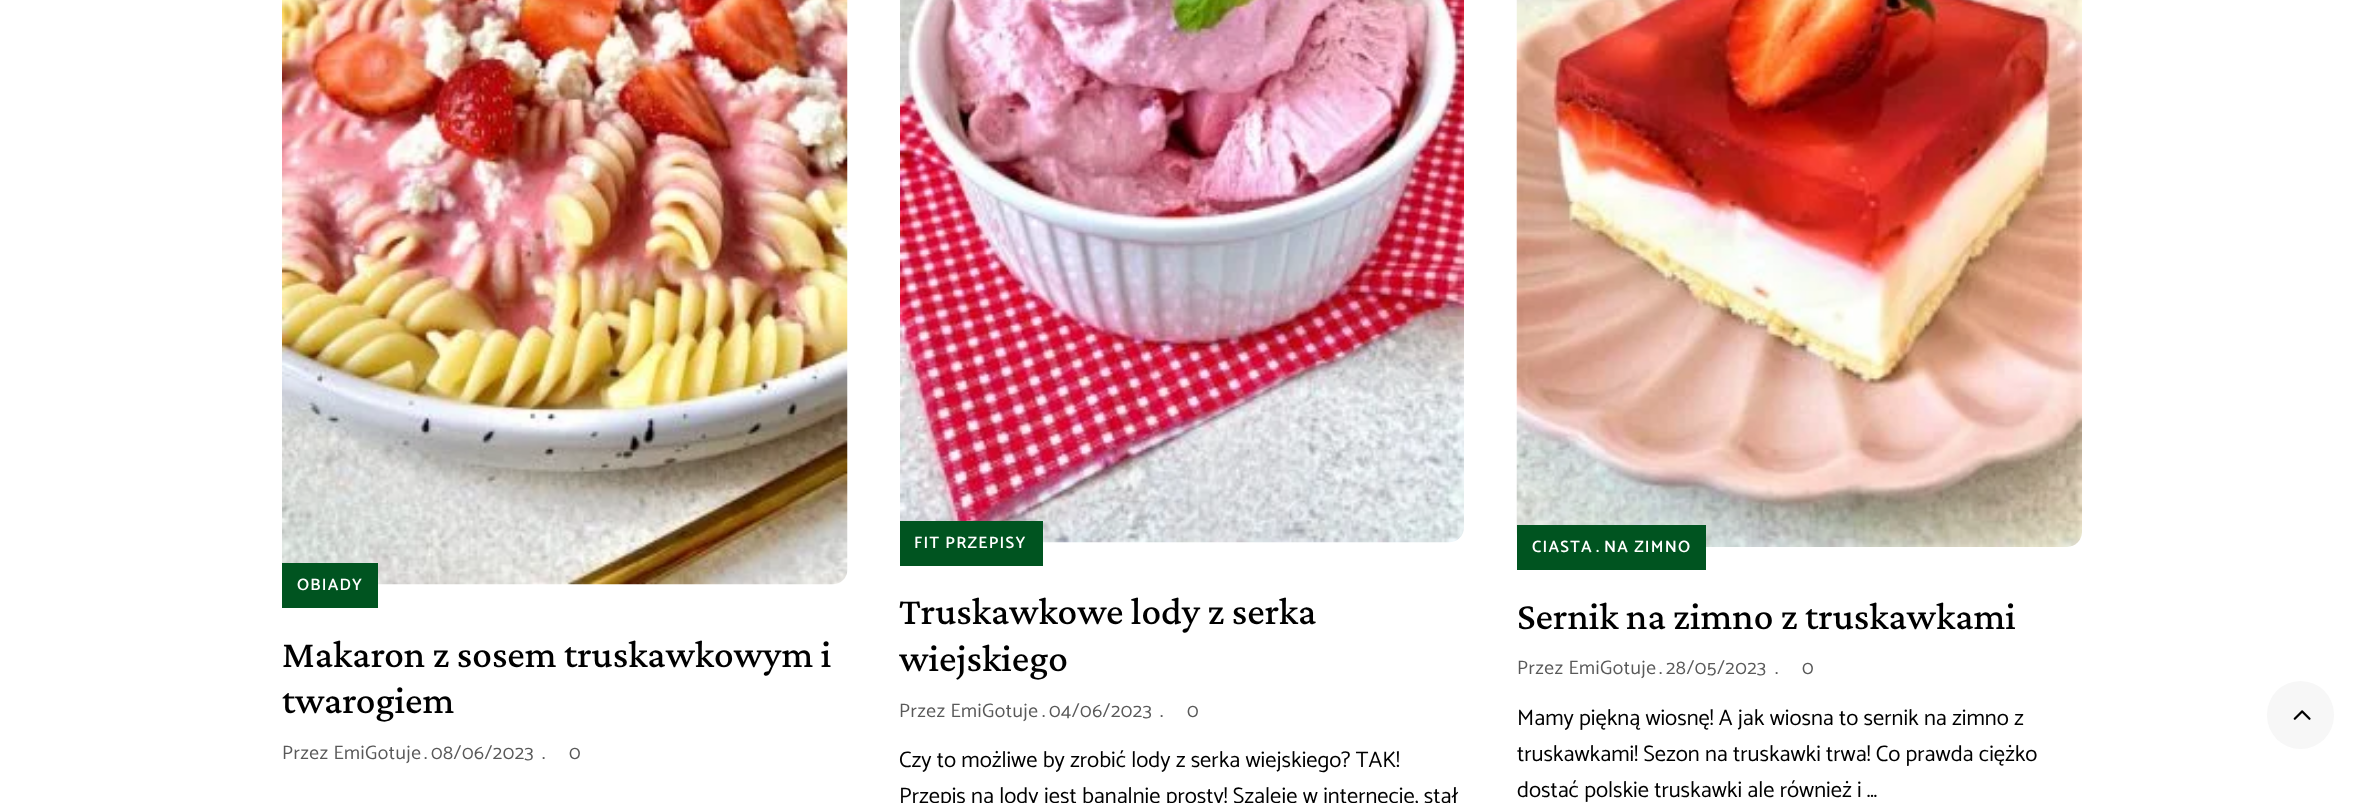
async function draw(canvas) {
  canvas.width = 2364;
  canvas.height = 803;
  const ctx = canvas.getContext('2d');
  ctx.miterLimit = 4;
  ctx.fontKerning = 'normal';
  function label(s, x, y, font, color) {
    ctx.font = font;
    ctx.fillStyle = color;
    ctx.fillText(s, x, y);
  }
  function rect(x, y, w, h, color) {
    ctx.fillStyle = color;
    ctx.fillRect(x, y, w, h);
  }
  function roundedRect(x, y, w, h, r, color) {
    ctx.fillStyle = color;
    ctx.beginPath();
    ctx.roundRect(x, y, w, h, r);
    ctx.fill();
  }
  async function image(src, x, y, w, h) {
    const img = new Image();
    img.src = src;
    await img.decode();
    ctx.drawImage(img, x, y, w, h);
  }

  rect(0, 0, 2364, 803, '#fff');
  await image('assets/img1.png', 282, 0, 566, 585);
  rect(282, 563, 96, 45, '#005420');
  ctx.letterSpacing = '1.25px';
  label('OBIADY', 297, 590, '600 16.5px Catamaran', '#fff');
  ctx.letterSpacing = '0px';
  label('Makaron z sosem truskawkowym i', 282, 667, '500 39px Crimson Pro', '#000');
  label('twarogiem', 282, 713, '500 39px Crimson Pro', '#000');
  ctx.letterSpacing = '0.5px';
  label('Przez EmiGotuje', 282, 759, '19.5px Catamaran', '#595959');
  label('.', 424, 759, '19.5px Catamaran', '#595959');
  label('08/06/2023', 431, 759, '19.5px Catamaran', '#595959');
  label('.', 542, 759, '19.5px Catamaran', '#595959');
  label('0', 569, 759, '19.5px Catamaran', '#595959');
  await image('assets/img2.png', 900, 0, 564, 543);
  rect(900, 521, 143, 45, '#005420');
  ctx.letterSpacing = '1.25px';
  label('FIT PRZEPISY', 914, 548, '600 16.5px Catamaran', '#fff');
  ctx.letterSpacing = '0px';
  label('Truskawkowe lody z serka', 899, 624, '500 39px Crimson Pro', '#000');
  label('wiejskiego', 899, 671, '500 39px Crimson Pro', '#000');
  ctx.letterSpacing = '0.5px';
  label('Przez EmiGotuje', 899, 717, '19.5px Catamaran', '#595959');
  label('.', 1042, 717, '19.5px Catamaran', '#595959');
  label('04/06/2023', 1049, 717, '19.5px Catamaran', '#595959');
  label('.', 1160, 717, '19.5px Catamaran', '#595959');
  label('0', 1187, 717, '19.5px Catamaran', '#595959');
  ctx.letterSpacing = '0px';
  label('Czy to możliwe by zrobić lody z serka wiejskiego? TAK!', 899, 767, '22.5px Catamaran', '#000');
  label('Przepis na lody jest banalnie prosty! Szaleje w internecie, stał', 899, 803, '22.5px Catamaran', '#000');
  await image('assets/img3.png', 1516, 0, 566, 547);
  rect(1517, 525, 189, 45, '#005420');
  ctx.letterSpacing = '1.25px';
  label('CIASTA', 1532, 552, '600 16.5px Catamaran', '#fff');
  label('.', 1596, 552, '600 16.5px Catamaran', '#fff');
  label('NA ZIMNO', 1604, 552, '600 16.5px Catamaran', '#fff');
  ctx.letterSpacing = '0px';
  label('Sernik na zimno z truskawkami', 1517, 629, '500 39px Crimson Pro', '#000');
  ctx.letterSpacing = '0.5px';
  label('Przez EmiGotuje', 1517, 674, '19.5px Catamaran', '#595959');
  label('.', 1659, 674, '19.5px Catamaran', '#595959');
  label('28/05/2023', 1666, 674, '19.5px Catamaran', '#595959');
  label('.', 1775, 674, '19.5px Catamaran', '#595959');
  label('0', 1802, 674, '19.5px Catamaran', '#595959');
  ctx.letterSpacing = '0px';
  label('Mamy piękną wiosnę! A jak wiosna to sernik na zimno z', 1517, 725, '22.5px Catamaran', '#000');
  label('truskawkami! Sezon na truskawki trwa! Co prawda ciężko', 1517, 761, '22.5px Catamaran', '#000');
  label('dostać polskie truskawki ale również i …', 1517, 797, '22.5px Catamaran', '#000');
  roundedRect(2267, 681, 67, 68, 33.5, '#f7f7f7');
  await image('assets/img4.png', 2293, 710, 18, 10);
}

draw(document.querySelector('canvas'));
